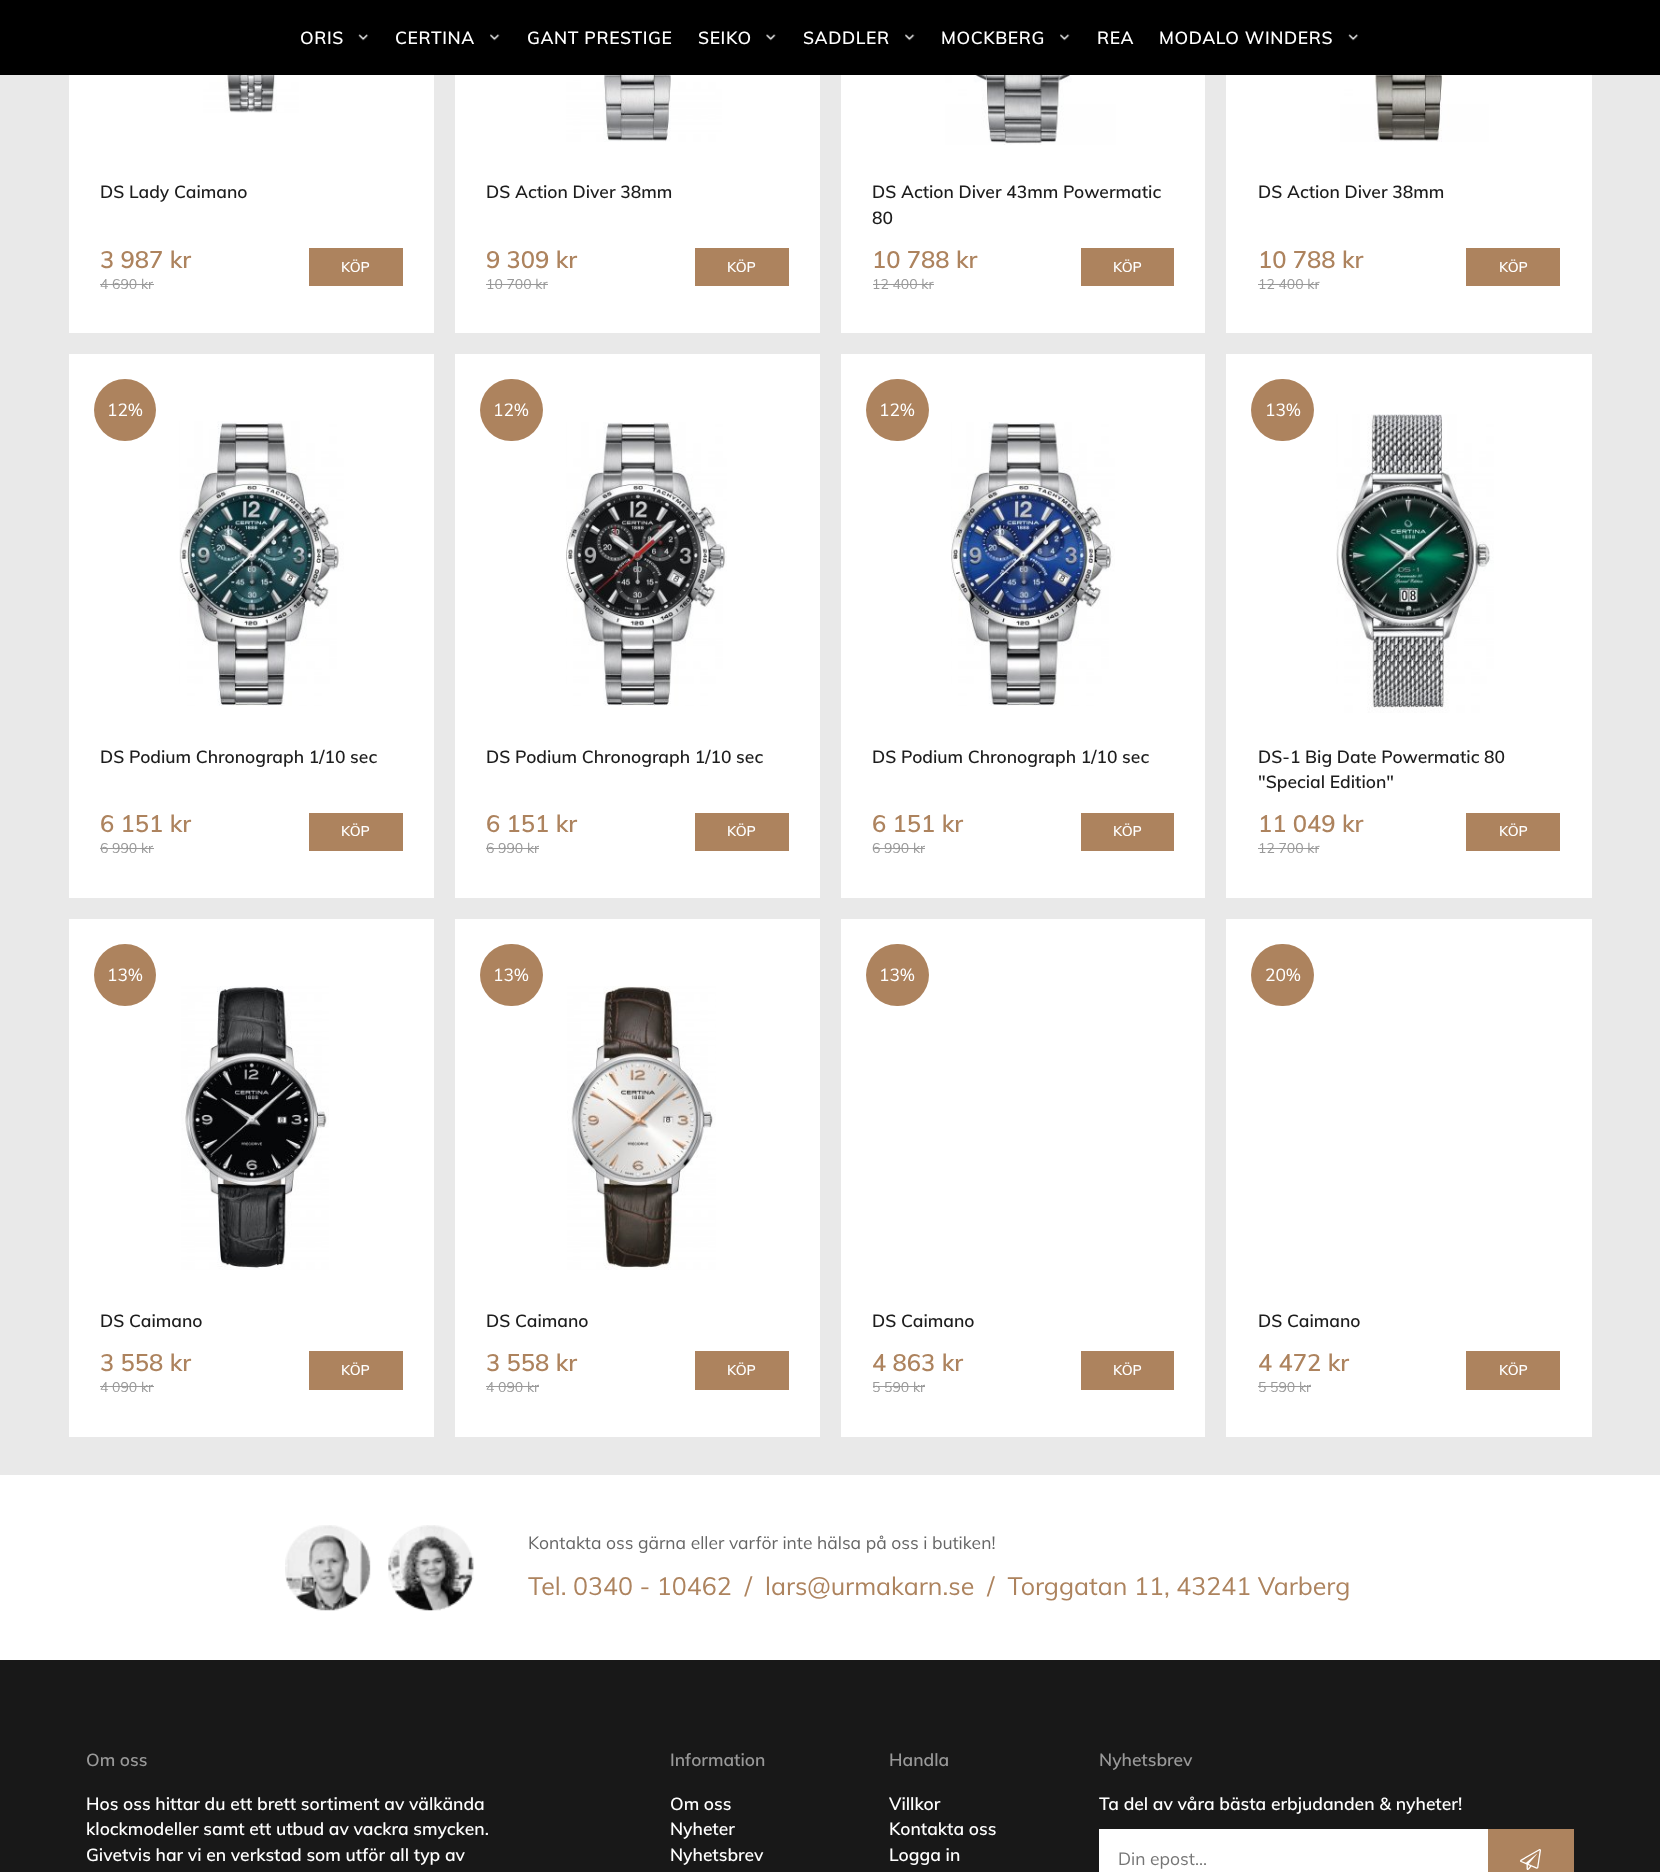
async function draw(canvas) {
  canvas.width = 1660;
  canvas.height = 1872;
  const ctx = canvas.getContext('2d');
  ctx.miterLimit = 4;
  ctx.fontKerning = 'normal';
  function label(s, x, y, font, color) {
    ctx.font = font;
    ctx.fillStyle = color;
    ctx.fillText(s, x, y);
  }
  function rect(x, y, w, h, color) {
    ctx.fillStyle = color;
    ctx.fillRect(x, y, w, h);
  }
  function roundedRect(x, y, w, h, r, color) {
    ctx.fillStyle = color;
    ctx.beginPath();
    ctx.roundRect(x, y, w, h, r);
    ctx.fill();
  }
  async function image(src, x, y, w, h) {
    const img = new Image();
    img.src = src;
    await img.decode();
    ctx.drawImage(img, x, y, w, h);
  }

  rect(0, 0, 1660, 1872, '#e9e9e9');
  rect(0, 0, 1660, 75, '#000');
  ctx.letterSpacing = '0.6px';
  label('ORIS', 300, 44, '600 17.5px Muli', '#fff');
  await image('assets/img1.png', 358, 34, 11, 7);
  label('CERTINA', 395, 44, '600 17.5px Muli', '#fff');
  await image('assets/img2.png', 490, 34, 10, 7);
  label('GANT PRESTIGE', 527, 44, '600 17.5px Muli', '#fff');
  label('SEIKO', 698, 44, '600 17.5px Muli', '#fff');
  await image('assets/img3.png', 766, 34, 10, 7);
  label('SADDLER', 803, 44, '600 17.5px Muli', '#fff');
  await image('assets/img2.png', 905, 34, 10, 7);
  label('MOCKBERG', 941, 44, '600 17.5px Muli', '#fff');
  await image('assets/img2.png', 1060, 34, 10, 7);
  label('REA', 1097, 44, '600 17.5px Muli', '#fff');
  label('MODALO WINDERS', 1159, 44, '600 17.5px Muli', '#fff');
  await image('assets/img1.png', 1348, 34, 11, 7);
  rect(69, 75, 365, 258, '#fff');
  await image('assets/img4.png', 203, 75, 96, 38);
  ctx.letterSpacing = '0px';
  label('DS Lady Caimano', 100, 198, '600 17.5px Muli', '#1d1d1d');
  label('3 987 kr', 100, 268, '600 23.75px Muli', '#ad835e');
  label('4 690 kr', 100, 289, '14px Muli', '#999');
  rect(100, 284, 54, 1, '#999');
  rect(309, 248, 94, 38, '#ad835e');
  label('KÖP', 341, 272, '600 14px Muli', '#fff');
  rect(455, 75, 365, 258, '#fff');
  await image('assets/img5.png', 566, 75, 156, 67);
  label('DS Action Diver 38mm', 486, 198, '600 17.5px Muli', '#1d1d1d');
  label('9 309 kr', 486, 268, '600 23.75px Muli', '#ad835e');
  label('10 700 kr', 486, 289, '14px Muli', '#999');
  rect(486, 284, 62, 1, '#999');
  rect(695, 248, 94, 38, '#ad835e');
  label('KÖP', 727, 272, '600 14px Muli', '#fff');
  rect(841, 75, 364, 258, '#fff');
  await image('assets/img6.png', 945, 75, 171, 70);
  label('DS Action Diver 43mm Powermatic', 872, 198, '600 17.5px Muli', '#1d1d1d');
  label('80', 872, 224, '600 17.5px Muli', '#1d1d1d');
  label('10 788 kr', 872, 268, '600 23.75px Muli', '#ad835e');
  label('12 400 kr', 872, 289, '14px Muli', '#999');
  rect(873, 284, 61, 1, '#999');
  rect(1081, 248, 93, 38, '#ad835e');
  label('KÖP', 1113, 272, '600 14px Muli', '#fff');
  rect(1226, 75, 366, 258, '#fff');
  await image('assets/img7.png', 1340, 75, 149, 67);
  label('DS Action Diver 38mm', 1258, 198, '600 17.5px Muli', '#1d1d1d');
  label('10 788 kr', 1258, 268, '600 23.75px Muli', '#ad835e');
  label('12 400 kr', 1258, 289, '14px Muli', '#999');
  rect(1258, 284, 61, 1, '#999');
  rect(1466, 248, 94, 38, '#ad835e');
  label('KÖP', 1499, 272, '600 14px Muli', '#fff');
  rect(69, 354, 365, 544, '#fff');
  ctx.fillStyle = '#ad835e';
  ctx.beginPath();
  ctx.arc(125, 410, 31, 0, 2 * Math.PI);
  ctx.fill();
  label('12%', 107, 416, '17.5px Muli', '#fff');
  await image('assets/img8.png', 179, 421, 165, 285);
  label('DS Podium Chronograph 1/10 sec', 100, 763, '600 17.5px Muli', '#1d1d1d');
  label('6 151 kr', 100, 832, '600 23.75px Muli', '#ad835e');
  label('6 990 kr', 100, 853, '14px Muli', '#999');
  rect(100, 848, 54, 1, '#999');
  rect(309, 813, 94, 38, '#ad835e');
  label('KÖP', 341, 836, '600 14px Muli', '#fff');
  rect(455, 354, 365, 544, '#fff');
  roundedRect(480, 379, 63, 62, 31, '#ad835e');
  label('12%', 493, 416, '17.5px Muli', '#fff');
  await image('assets/img9.png', 566, 422, 161, 284);
  label('DS Podium Chronograph 1/10 sec', 486, 763, '600 17.5px Muli', '#1d1d1d');
  label('6 151 kr', 486, 832, '600 23.75px Muli', '#ad835e');
  label('6 990 kr', 486, 853, '14px Muli', '#999');
  rect(486, 848, 53, 1, '#999');
  rect(695, 813, 94, 38, '#ad835e');
  label('KÖP', 727, 836, '600 14px Muli', '#fff');
  rect(841, 354, 364, 544, '#fff');
  roundedRect(866, 379, 63, 62, 31, '#ad835e');
  label('12%', 879, 416, '17.5px Muli', '#fff');
  await image('assets/img10.png', 951, 422, 164, 284);
  label('DS Podium Chronograph 1/10 sec', 872, 763, '600 17.5px Muli', '#1d1d1d');
  label('6 151 kr', 872, 832, '600 23.75px Muli', '#ad835e');
  label('6 990 kr', 872, 853, '14px Muli', '#999');
  rect(873, 848, 52, 1, '#999');
  rect(1081, 813, 93, 38, '#ad835e');
  label('KÖP', 1113, 836, '600 14px Muli', '#fff');
  rect(1226, 354, 366, 544, '#fff');
  roundedRect(1251, 379, 63, 62, 31, '#ad835e');
  label('13%', 1265, 416, '17.5px Muli', '#fff');
  await image('assets/img11.png', 1336, 414, 158, 299);
  label('DS-1 Big Date Powermatic 80', 1258, 763, '600 17.5px Muli', '#1d1d1d');
  label('"Special Edition"', 1258, 788, '600 17.5px Muli', '#1d1d1d');
  label('11 049 kr', 1258, 832, '600 23.75px Muli', '#ad835e');
  label('12 700 kr', 1258, 853, '14px Muli', '#999');
  rect(1258, 848, 61, 1, '#999');
  rect(1466, 813, 94, 38, '#ad835e');
  label('KÖP', 1499, 836, '600 14px Muli', '#fff');
  rect(69, 919, 365, 518, '#fff');
  ctx.fillStyle = '#ad835e';
  ctx.beginPath();
  ctx.arc(125, 975, 31, 0, 2 * Math.PI);
  ctx.fill();
  label('13%', 107, 981, '17.5px Muli', '#fff');
  await image('assets/img12.png', 181, 986, 148, 284);
  label('DS Caimano', 100, 1327, '600 17.5px Muli', '#1d1d1d');
  label('3 558 kr', 100, 1371, '600 23.75px Muli', '#ad835e');
  label('4 090 kr', 100, 1392, '14px Muli', '#999');
  rect(100, 1386, 54, 1, '#999');
  rect(309, 1351, 94, 39, '#ad835e');
  label('KÖP', 341, 1375, '600 14px Muli', '#fff');
  rect(455, 919, 365, 518, '#fff');
  roundedRect(480, 944, 63, 62, 31, '#ad835e');
  label('13%', 493, 981, '17.5px Muli', '#fff');
  await image('assets/img13.png', 567, 986, 149, 284);
  label('DS Caimano', 486, 1327, '600 17.5px Muli', '#1d1d1d');
  label('3 558 kr', 486, 1371, '600 23.75px Muli', '#ad835e');
  label('4 090 kr', 486, 1392, '14px Muli', '#999');
  rect(486, 1386, 53, 1, '#999');
  rect(695, 1351, 94, 39, '#ad835e');
  label('KÖP', 727, 1375, '600 14px Muli', '#fff');
  rect(841, 919, 364, 518, '#fff');
  roundedRect(866, 944, 63, 62, 31, '#ad835e');
  label('13%', 879, 981, '17.5px Muli', '#fff');
  label('DS Caimano', 872, 1327, '600 17.5px Muli', '#1d1d1d');
  label('4 863 kr', 872, 1371, '600 23.75px Muli', '#ad835e');
  label('5 590 kr', 872, 1392, '14px Muli', '#999');
  rect(873, 1386, 52, 1, '#999');
  rect(1081, 1351, 93, 39, '#ad835e');
  label('KÖP', 1113, 1375, '600 14px Muli', '#fff');
  rect(1226, 919, 366, 518, '#fff');
  roundedRect(1251, 944, 63, 62, 31, '#ad835e');
  label('20%', 1265, 981, '17.5px Muli', '#fff');
  label('DS Caimano', 1258, 1327, '600 17.5px Muli', '#1d1d1d');
  label('4 472 kr', 1258, 1371, '600 23.75px Muli', '#ad835e');
  label('5 590 kr', 1258, 1392, '14px Muli', '#999');
  rect(1258, 1386, 53, 1, '#999');
  rect(1466, 1351, 94, 39, '#ad835e');
  label('KÖP', 1499, 1375, '600 14px Muli', '#fff');
  rect(0, 1475, 1660, 185, '#fff');
  await image('assets/img14.png', 285, 1525, 189, 86);
  label('Kontakta oss gärna eller varför inte hälsa på oss i butiken!', 528, 1549, '17.5px Muli', '#666');
  label('Tel. 0340 - 10462  /  lars@urmakarn.se  /  Torggatan 11, 43241 Varberg', 528, 1595, '25px Muli', '#ad835e');
  rect(0, 1660, 1660, 212, '#181818');
  label('Om oss', 86, 1766, '600 17.5px Muli', '#999');
  label('Hos oss hittar du ett brett sortiment av välkända', 86, 1810, '600 17.5px Muli', '#fff');
  label('klockmodeller samt ett utbud av vackra smycken.', 86, 1835, '600 17.5px Muli', '#fff');
  label('Givetvis har vi en verkstad som utför all typ av', 86, 1861, '600 17.5px Muli', '#fff');
  label('Information', 670, 1766, '600 17.5px Muli', '#999');
  label('Om oss', 670, 1810, '600 17.5px Muli', '#fff');
  label('Nyheter', 670, 1835, '600 17.5px Muli', '#fff');
  label('Nyhetsbrev', 670, 1861, '600 17.5px Muli', '#fff');
  label('Handla', 889, 1766, '600 17.5px Muli', '#999');
  label('Villkor', 889, 1810, '600 17.5px Muli', '#fff');
  label('Kontakta oss', 889, 1835, '600 17.5px Muli', '#fff');
  label('Logga in', 889, 1861, '600 17.5px Muli', '#fff');
  label('Nyhetsbrev', 1099, 1766, '600 17.5px Muli', '#999');
  label('Ta del av våra bästa erbjudanden & nyheter!', 1099, 1810, '600 17.5px Muli', '#fff');
  rect(1099, 1829, 389, 43, '#fff');
  label('Din epost...', 1118, 1865, '17.5px Muli', '#757575');
  rect(1488, 1829, 86, 43, '#ad835e');
  await image('assets/img15.png', 1520, 1849, 21, 21);
}

draw(document.querySelector('canvas'));
